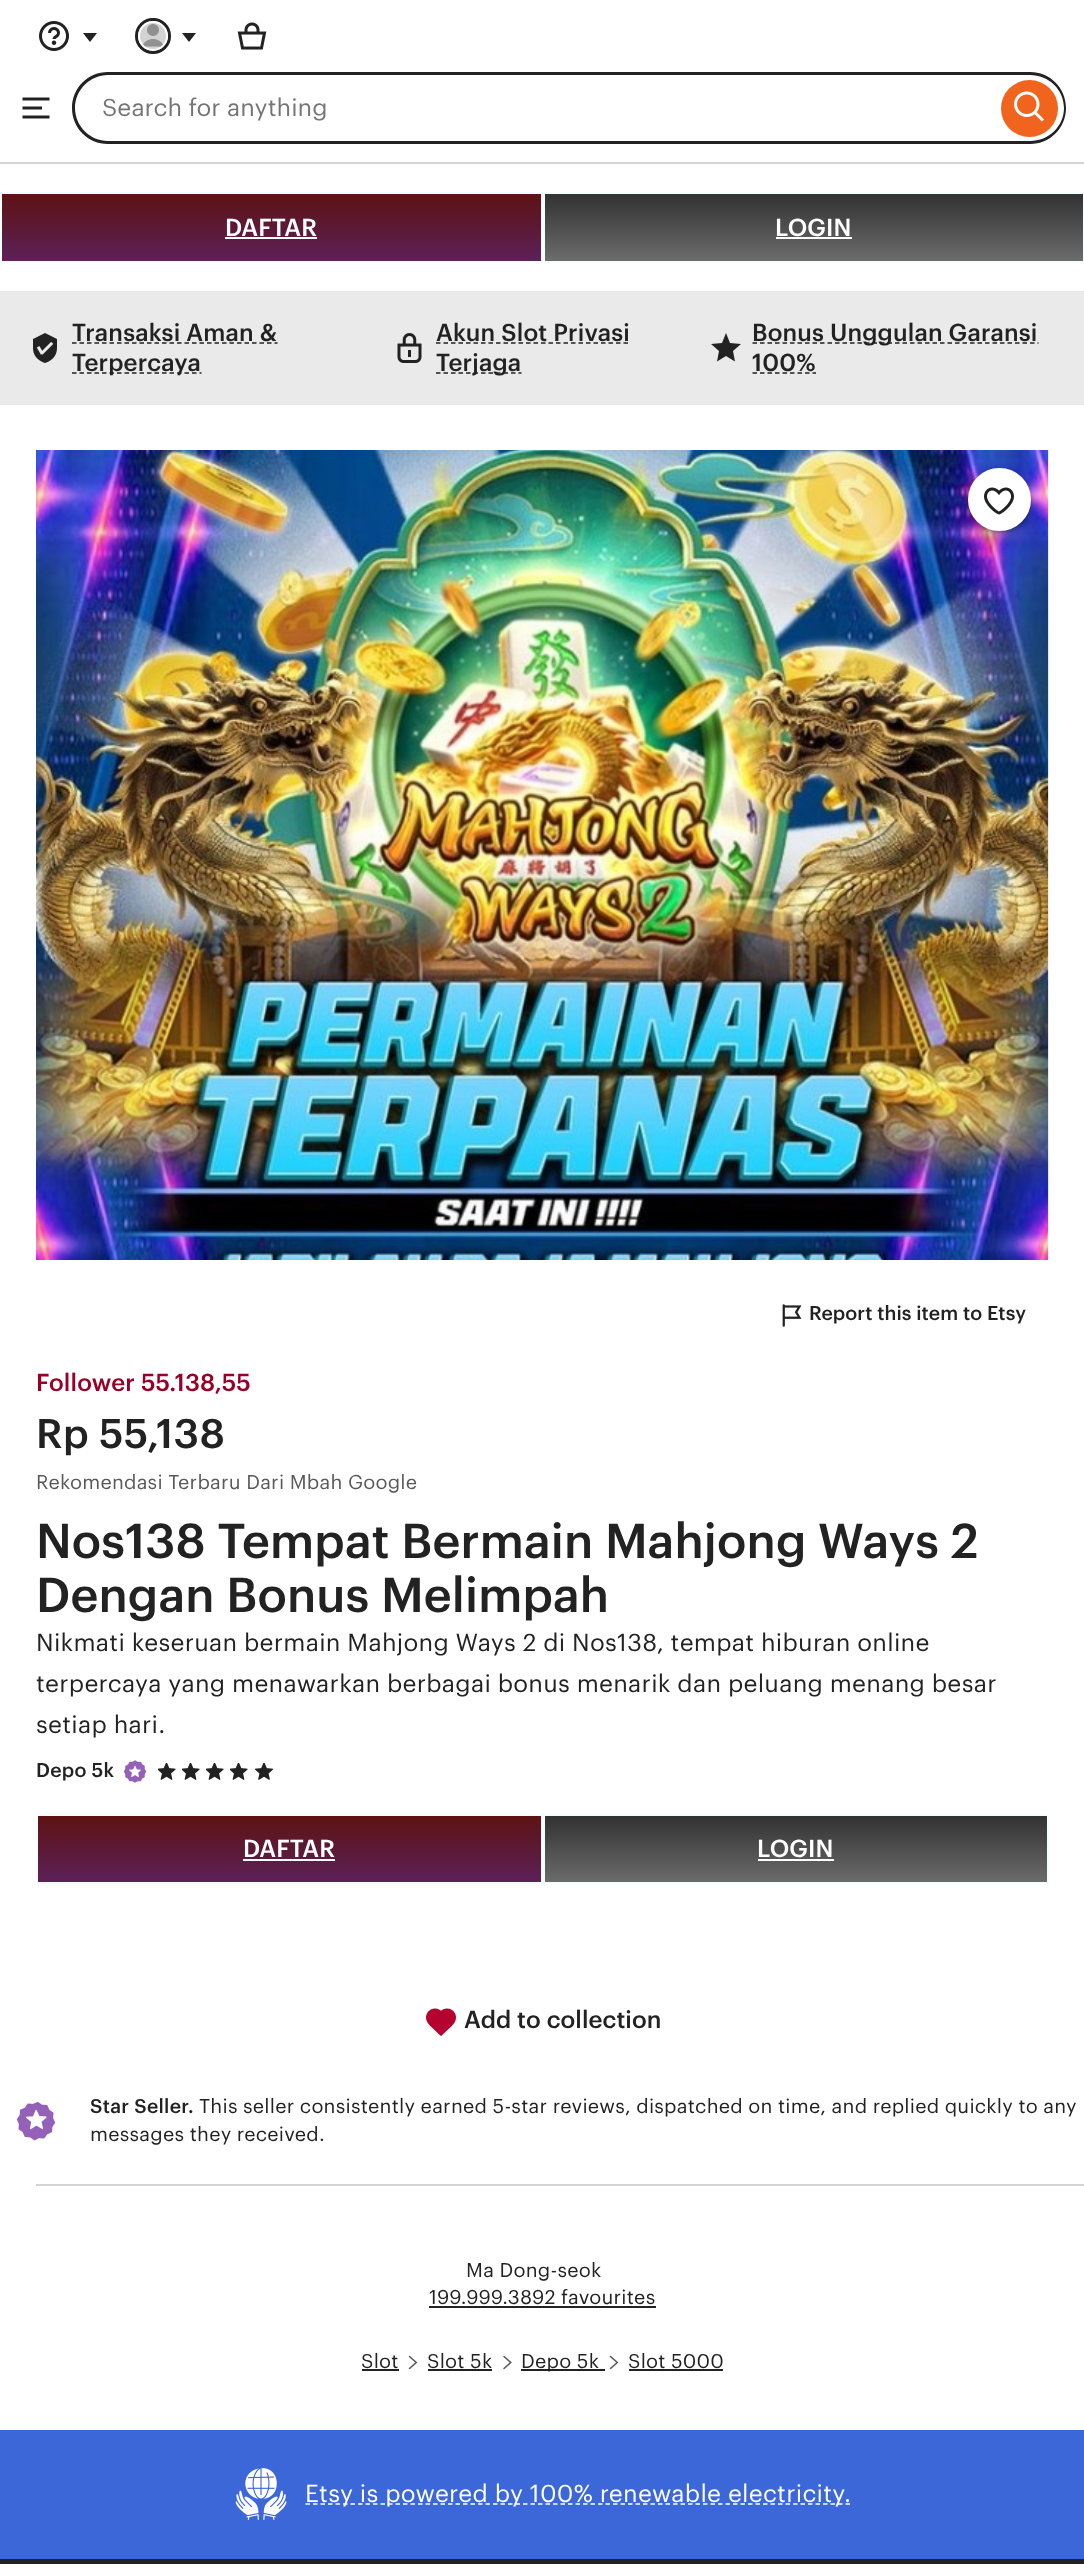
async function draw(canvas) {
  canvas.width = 1084;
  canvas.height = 2564;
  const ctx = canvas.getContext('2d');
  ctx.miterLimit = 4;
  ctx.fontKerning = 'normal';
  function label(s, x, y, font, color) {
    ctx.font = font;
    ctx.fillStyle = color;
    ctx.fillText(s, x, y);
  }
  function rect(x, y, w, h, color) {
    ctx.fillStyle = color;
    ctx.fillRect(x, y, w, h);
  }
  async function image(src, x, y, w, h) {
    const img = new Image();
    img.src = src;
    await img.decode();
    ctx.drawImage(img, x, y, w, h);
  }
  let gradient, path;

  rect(0, 0, 1084, 2564, '#fff');
  rect(0, 162, 1084, 2, '#d4d4d4');
  await image('assets/img1.png', 39, 21, 30, 30);
  ctx.fillStyle = '#222';
  path = new Path2D('M97 33L90 42L83 33Z');
  ctx.fill(path);
  await image('assets/img2.png', 135, 18, 36, 36);
  ctx.beginPath();
  ctx.arc(153, 36, 16.5, 0, 2 * Math.PI);
  ctx.strokeStyle = '#222';
  ctx.lineWidth = 3;
  ctx.stroke();
  ctx.beginPath();
  ctx.arc(153, 36, 14, 0, 2 * Math.PI);
  ctx.strokeStyle = '#fff';
  ctx.lineWidth = 2;
  ctx.stroke();
  path = new Path2D('M196 33L189 42L182 33Z');
  ctx.fill(path);
  path = new Path2D('M108 72H993V144H108C88 144 72 128 72 108C72 88 88 72 108 72ZM108 75H993V141H108C90 141 75 126 75 108C75 90 90 75 108 75Z');
  ctx.fill(path, 'evenodd');
  label('Search for anything', 102, 116, '24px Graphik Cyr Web', '#757575');
  ctx.fillStyle = '#fff';
  path = new Path2D('M216 108V106.5L217.5 108Z');
  ctx.fill(path);
  await image('assets/img3.png', 237, 22, 30, 28);
  await image('assets/img4.png', 22, 97, 28, 22);
  ctx.fillStyle = '#222';
  path = new Path2D('M993 72H1030C1050 72 1066 88 1066 108C1066 128 1050 144 1030 144H993ZM993 75H1030C1049 75 1064 90 1064 108C1064 126 1049 141 1030 141H993Z');
  ctx.fill(path, 'evenodd');
  ctx.fillStyle = '#f1641e';
  ctx.beginPath();
  ctx.arc(1029.5, 108.5, 28.5, 0, 2 * Math.PI);
  ctx.fill();
  await image('assets/img5.png', 1014, 91, 30, 31);
  gradient = ctx.createLinearGradient(272, 193, 272, 261);
  gradient.addColorStop(0, '#5d1212');
  gradient.addColorStop(1, '#5c2159');
  ctx.fillStyle = gradient;
  ctx.fillRect(2, 194, 539, 67);
  ctx.strokeStyle = '#f4feff';
  ctx.strokeRect(1, 193, 541, 69);
  label('DAFTAR', 225, 236, '500 24px Graphik Cyr Web', '#fff');
  rect(225, 237, 92, 2, '#fff');
  gradient = ctx.createLinearGradient(814, 193, 814, 261);
  gradient.addColorStop(0, '#313131');
  gradient.addColorStop(1, '#6c6c6c');
  ctx.fillStyle = gradient;
  ctx.fillRect(545, 194, 538, 67);
  ctx.strokeRect(544, 193, 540, 69);
  label('LOGIN', 775, 236, '500 24px Graphik Cyr Web', '#fff');
  rect(776, 237, 76, 2, '#fff');
  rect(0, 291, 1084, 114, '#eaeaea');
  await image('assets/img6.png', 33, 333, 24, 30);
  ctx.letterSpacing = '0.1px';
  label('Transaksi Aman &', 72, 341, '500 24px Graphik Cyr Web', '#222');
  path = new Path2D('M72 343H277.5');
  ctx.strokeStyle = '#222';
  ctx.lineWidth = 1.5;
  ctx.setLineDash([4.5, 3]);
  ctx.stroke(path);
  path = new Path2D('M72 373H201.5');
  ctx.stroke(path);
  label('Terpercaya', 72, 371, '500 24px Graphik Cyr Web', '#222');
  await image('assets/img7.png', 397, 333, 25, 30);
  label('Akun Slot Privasi', 436, 341, '500 24px Graphik Cyr Web', '#222');
  path = new Path2D('M436 343H630.5');
  ctx.stroke(path);
  path = new Path2D('M436 373H521.5');
  ctx.stroke(path);
  label('Terjaga', 436, 371, '500 24px Graphik Cyr Web', '#222');
  path = new Path2D('M730 343L726 333L722 343L711 344L719 351L717 361.5L726 356L735 361.5L733 351L741 344Z');
  ctx.fill(path);
  path = new Path2D('M752.5 343H1038.5');
  ctx.stroke(path);
  label('Bonus Unggulan Garansi', 752, 341, '500 24px Graphik Cyr Web', '#222');
  label('100%', 752, 371, '500 24px Graphik Cyr Web', '#222');
  path = new Path2D('M752.5 373H816');
  ctx.stroke(path);
  await image('assets/img8.png', 36, 450, 1013, 810);
  ctx.fillStyle = '#00000026';
  ctx.filter = 'blur(6px)';
  ctx.beginPath();
  ctx.roundRect(963, 470, 72, 72, 36);
  ctx.fill();
  ctx.filter = 'none';
  ctx.fillStyle = '#0000004d';
  ctx.filter = 'blur(2px)';
  ctx.beginPath();
  ctx.roundRect(968, 470, 63, 63, 31.5);
  ctx.fill();
  ctx.filter = 'none';
  ctx.fillStyle = '#fff';
  ctx.beginPath();
  ctx.arc(999.5, 499.5, 30.5, 0, 2 * Math.PI);
  ctx.fill();
  ctx.strokeStyle = '#fff';
  ctx.lineWidth = 2;
  ctx.setLineDash([]);
  ctx.stroke();
  await image('assets/img9.png', 984, 487, 30, 28);
  await image('assets/img10.png', 782, 1304, 20, 23);
  ctx.letterSpacing = '0px';
  label('Report this item to Etsy', 809, 1320, '500 19.5px Graphik Cyr Web', '#222');
  ctx.letterSpacing = '0.1px';
  label('Follower 55.138,55', 36, 1391, '500 24px Graphik Cyr Web', '#9a0027');
  ctx.letterSpacing = '0.25px';
  label('Rp 55,138', 36, 1448, '500 40.5px Graphik Cyr Web', '#222');
  ctx.letterSpacing = '0.2px';
  label('Rekomendasi Terbaru Dari Mbah Google', 36, 1489, '19.5px Graphik Cyr Web', '#595959');
  ctx.letterSpacing = '0px';
  label('Nos138 Tempat Bermain Mahjong Ways 2', 36, 1558, '500 48px Graphik Cyr Web', '#222');
  label('Dengan Bonus Melimpah', 36, 1612, '500 48px Graphik Cyr Web', '#222');
  ctx.letterSpacing = '0.25px';
  label('Nikmati keseruan bermain Mahjong Ways 2 di Nos138, tempat hiburan online', 36, 1651, '24px Graphik Cyr Web', '#222');
  label('terpercaya yang menawarkan berbagai bonus menarik dan peluang menang besar', 36, 1692, '24px Graphik Cyr Web', '#222');
  label('setiap hari.', 36, 1733, '24px Graphik Cyr Web', '#222');
  ctx.letterSpacing = '0.2px';
  label('Depo 5k', 36, 1777, '500 19.5px Graphik Cyr Web', '#222');
  await image('assets/img11.png', 123, 1760, 24, 23);
  await image('assets/img12.png', 158, 1763, 18, 17);
  await image('assets/img12.png', 182, 1763, 18, 17);
  await image('assets/img12.png', 206, 1763, 18, 17);
  await image('assets/img12.png', 230, 1763, 18, 17);
  await image('assets/img13.png', 255, 1763, 18, 17);
  gradient = ctx.createLinearGradient(290, 1815, 290, 1883);
  gradient.addColorStop(0, '#5d1212');
  gradient.addColorStop(1, '#5c2159');
  ctx.fillStyle = gradient;
  ctx.fillRect(38, 1816, 503, 66);
  ctx.strokeStyle = '#f4feff';
  ctx.strokeRect(37, 1815, 505, 68);
  ctx.letterSpacing = '0px';
  label('DAFTAR', 243, 1857, '500 24px Graphik Cyr Web', '#fff');
  rect(243, 1859, 92, 2, '#fff');
  gradient = ctx.createLinearGradient(796, 1815, 796, 1883);
  gradient.addColorStop(0, '#313131');
  gradient.addColorStop(1, '#6c6c6c');
  ctx.fillStyle = gradient;
  ctx.fillRect(545, 1816, 502, 66);
  ctx.strokeRect(544, 1815, 504, 68);
  label('LOGIN', 757, 1857, '500 24px Graphik Cyr Web', '#fff');
  rect(758, 1859, 76, 2, '#fff');
  await image('assets/img14.png', 426, 2008, 30, 28);
  label('Add to collection', 464, 2028, '500 24px Graphik Cyr Web', '#222');
  await image('assets/img15.png', 16, 2101, 40, 40);
  ctx.letterSpacing = '0.2px';
  label('Star Seller.', 90, 2113, '500 19.5px Graphik Cyr Web', '#222');
  label('This seller consistently earned 5-star reviews, dispatched on time, and replied quickly to any', 199, 2113, '19.5px Graphik Cyr Web', '#222');
  label('messages they received.', 90, 2141, '19.5px Graphik Cyr Web', '#222');
  rect(36, 2184, 1048, 2, '#d4d4d4');
  label('Ma Dong-seok', 466, 2277, '19.5px Graphik Cyr Web', '#222');
  label('199.999.3892 favourites', 429, 2304, '19.5px Graphik Cyr Web', '#222');
  rect(429, 2306, 227, 2, '#222');
  label('Slot', 361, 2368, '19.5px Graphik Cyr Web', '#222');
  rect(362, 2369, 37, 2, '#222');
  await image('assets/img16.png', 408, 2355, 10, 15);
  label('Slot 5k', 427, 2368, '19.5px Graphik Cyr Web', '#222');
  rect(428, 2369, 64, 2, '#222');
  await image('assets/img17.png', 503, 2355, 9, 15);
  rect(521, 2369, 84, 2, '#222');
  label('Depo 5k', 521, 2368, '19.5px Graphik Cyr Web', '#222');
  await image('assets/img16.png', 609, 2355, 10, 15);
  label('Slot 5000', 628, 2368, '19.5px Graphik Cyr Web', '#222');
  rect(629, 2369, 94, 2, '#222');
  rect(0, 2430, 1084, 129, '#3b67d9');
  await image('assets/img18.png', 235, 2468, 52, 52);
  path = new Path2D('M305.5 2504H851');
  ctx.strokeStyle = '#fff';
  ctx.lineWidth = 1.5;
  ctx.setLineDash([4.5, 3]);
  ctx.stroke(path);
  ctx.letterSpacing = '0.25px';
  label('Etsy is powered by 100% renewable electricity.', 305, 2502, '24px Graphik Cyr Web', '#fff');
  rect(0, 2559, 1084, 5, '#222');
}

draw(document.querySelector('canvas'));
